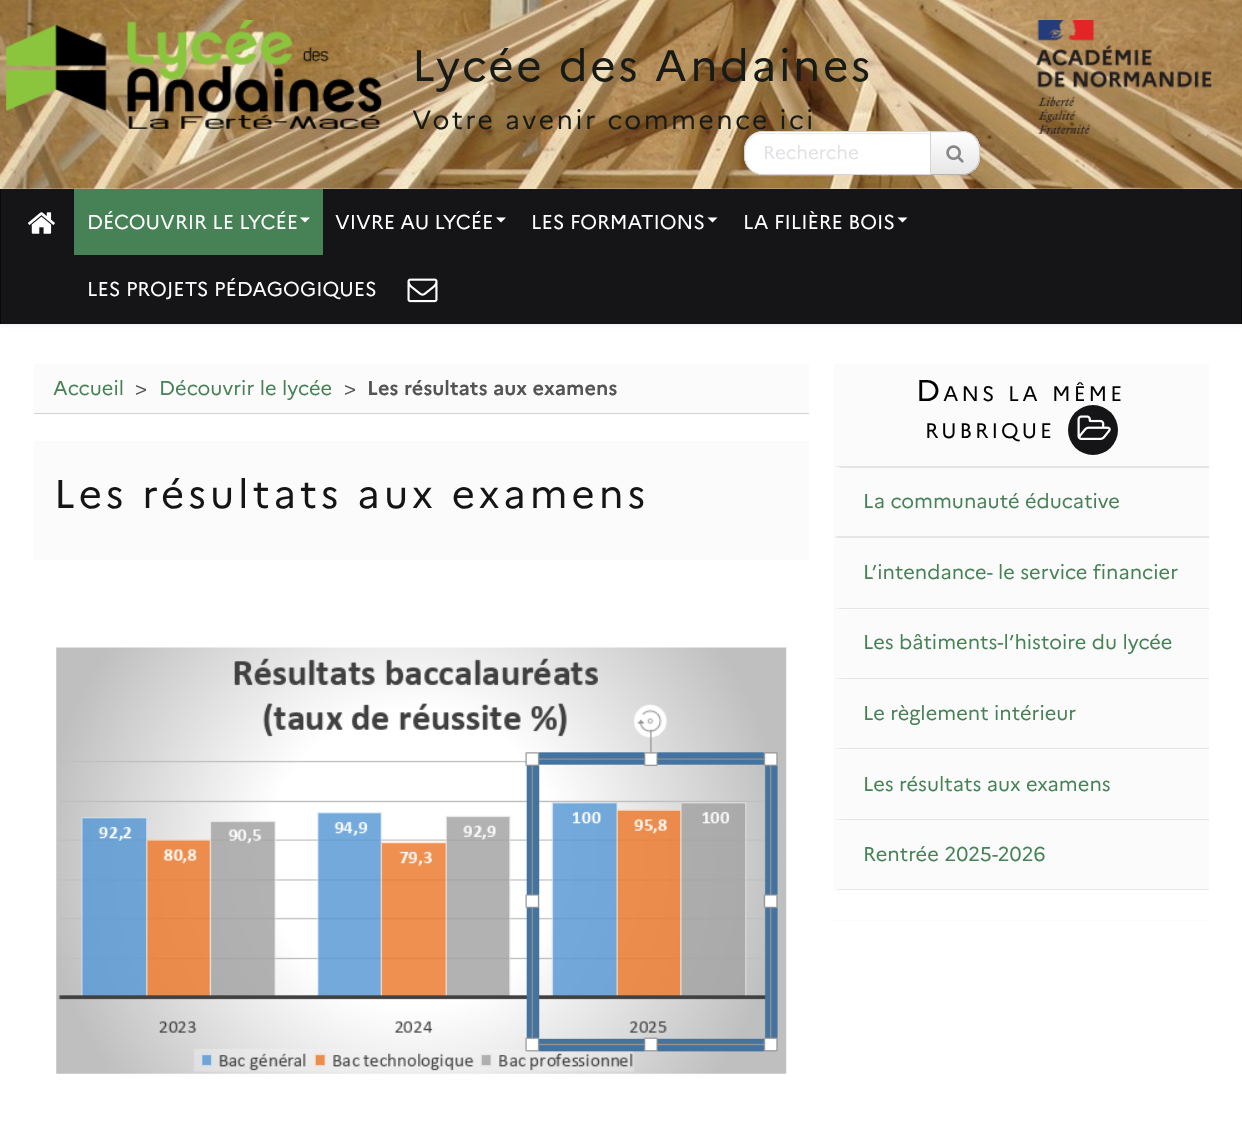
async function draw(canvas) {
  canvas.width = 1242;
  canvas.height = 1132;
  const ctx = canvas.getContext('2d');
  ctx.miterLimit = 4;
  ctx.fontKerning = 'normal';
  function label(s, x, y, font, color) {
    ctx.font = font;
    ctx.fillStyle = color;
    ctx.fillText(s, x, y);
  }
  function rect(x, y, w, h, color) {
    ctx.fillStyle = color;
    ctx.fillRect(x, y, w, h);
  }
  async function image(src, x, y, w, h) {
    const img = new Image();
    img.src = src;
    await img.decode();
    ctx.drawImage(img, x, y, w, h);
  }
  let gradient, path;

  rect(0, 0, 1242, 1132, '#fff');
  ctx.fillStyle = '#00000012';
  ctx.filter = 'blur(2.5px)';
  ctx.beginPath();
  ctx.rect(0, 190, 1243, 135);
  ctx.fill();
  ctx.filter = 'none';
  await image('assets/img1.png', 0, 0, 1242, 189);
  await image('assets/img2.png', 6, 20, 376, 109);
  ctx.letterSpacing = '2.5px';
  label('Lycée des Andaines', 412, 81, '44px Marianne', '#161b17');
  label('Votre avenir commence ici', 412, 129, '26.4px Marianne', '#161b17');
  await image('assets/img3.png', 1036, 20, 176, 114);
  ctx.fillStyle = '#0000000d';
  ctx.filter = 'blur(1px)';
  ctx.beginPath();
  ctx.roundRect(930, 133, 50, 43, 18);
  ctx.fill();
  ctx.filter = 'none';
  ctx.fillStyle = '#f5f5f5';
  ctx.beginPath();
  ctx.roundRect(930, 131, 50, 44, [0, 18, 18, 0]);
  ctx.fill();
  ctx.save();
  ctx.beginPath();
  ctx.roundRect(930, 131, 50, 44, [0, 18, 18, 0]);
  ctx.clip();
  gradient = ctx.createLinearGradient(955, 133, 955, 174);
  gradient.addColorStop(0, '#fff');
  gradient.addColorStop(1, '#e6e6e6');
  ctx.fillStyle = gradient;
  ctx.fillRect(931, 133, 49, 41);
  ctx.restore();
  ctx.fillStyle = '#ccc';
  path = new Path2D('M931 132L930 131H965C969 132 972 134 975 136L974 137C971 134 967 132 962 132Z');
  ctx.fill(path);
  path = new Path2D('M980 158C980 150.5 981 142.5 975 136.5L974 137.5C979 142 979 147 979 153.5C979 160 978.5 164.5 974 169L975 170C978 166.5 980 162.5 980 158Z');
  ctx.fill(path);
  ctx.fillStyle = '#b3b3b3';
  path = new Path2D('M962 175C967 175 972 173 975 170L974 169C971 172 967 174 962 174H931L930 175Z');
  ctx.fill(path);
  ctx.fillStyle = '#fff';
  ctx.beginPath();
  ctx.roundRect(744, 131, 187, 44, [19, 0, 0, 19]);
  ctx.fill();
  ctx.fillStyle = '#ececec';
  path = new Path2D('M762 134H930V133H763C753 133 745 141 745 151V152C746 143 752 134 762 134ZM746 163L745 156Z');
  ctx.fill(path, 'evenodd');
  ctx.beginPath();
  ctx.roundRect(744.5, 131.5, 186, 43, [18.5, 0, 0, 18.5]);
  ctx.strokeStyle = '#d4d4d4';
  ctx.stroke();
  ctx.letterSpacing = '0px';
  label('Recherche', 763, 159, '18.75px Marianne', '#e0e2e4');
  await image('assets/img4.png', 946, 145, 18, 18);
  rect(1, 189, 1240, 135, '#151517');
  rect(1241, 189, 1, 135, '#09090a');
  rect(0, 189, 1, 135, '#09090a');
  await image('assets/img5.png', 28, 212, 27, 22);
  rect(74, 189, 249, 66, '#478257');
  label('DÉCOUVRIR LE LYCÉE', 87, 229, '20px Marianne', '#fff');
  path = new Path2D('M300 217.5H310L305 222.5Z');
  ctx.fill(path);
  label('VIVRE AU LYCÉE', 335, 229, '20px Marianne', '#fff');
  path = new Path2D('M496 217.5H506L501 222.5Z');
  ctx.fill(path);
  label('LES FORMATIONS', 531, 229, '20px Marianne', '#fff');
  path = new Path2D('M707.5 217.5H717.5L712.5 222.5Z');
  ctx.fill(path);
  label('LA FILIÈRE BOIS', 743, 229, '20px Marianne', '#fff');
  path = new Path2D('M897.5 217.5H907.5L902.5 222.5Z');
  ctx.fill(path);
  label('LES PROJETS PÉDAGOGIQUES', 87, 296, '20px Marianne', '#fff');
  await image('assets/img6.png', 407, 278, 31, 25);
  rect(34, 364, 775, 49, '#fbfbfb');
  rect(34, 413, 775, 1, '#d4d4d4');
  label('Accueil', 53, 395, '20px Marianne', '#478257');
  label('>', 135, 395, '20px Marianne', '#555');
  label('Découvrir le lycée', 159, 395, '20px Marianne', '#478257');
  label('>', 344, 395, '20px Marianne', '#555');
  label('Les résultats aux examens', 367, 395, 'bold 20px Marianne', '#555');
  rect(34, 441, 775, 119, '#fbfbfb');
  ctx.letterSpacing = '4px';
  label('Les résultats aux examens', 54, 508, '40px Marianne', '#151515');
  await image('assets/img7.png', 56, 647, 731, 427);
  rect(834, 364, 375, 526, '#fbfbfb');
  ctx.letterSpacing = '3px';
  label('D', 916, 401, '30px Marianne', '#000');
  label('ANS', 943, 401, '21px Marianne', '#000');
  label('LA', 1008, 401, '21px Marianne', '#000');
  label('MÊME', 1052, 401, '21px Marianne', '#000');
  label('RUBRIQUE', 925, 438, '21px Marianne', '#000');
  ctx.fillStyle = '#151517';
  ctx.beginPath();
  ctx.arc(1093, 430, 25, 0, 2 * Math.PI);
  ctx.fill();
  await image('assets/img8.png', 1077, 415, 34, 25);
  ctx.fillStyle = '#e5e5e5';
  path = new Path2D('M834 466H1209V468H842Z');
  ctx.fill(path);
  path = new Path2D('M1209 538H834L842 536H1209Z');
  ctx.fill(path);
  ctx.letterSpacing = '0px';
  label('La communauté éducative', 863, 508, '20px Marianne', '#478257');
  ctx.fillStyle = '#e5e5e5';
  path = new Path2D('M834 536H1209V538H842Z');
  ctx.fill(path);
  label('L’intendance- le service financier', 863, 579, '20px Marianne', '#478257');
  ctx.fillStyle = '#e5e5e5';
  path = new Path2D('M834 608H1209V609H842Z');
  ctx.fill(path);
  label('Les bâtiments-l’histoire du lycée', 863, 649, '20px Marianne', '#478257');
  ctx.fillStyle = '#e5e5e5';
  path = new Path2D('M834 678H1209V679H842Z');
  ctx.fill(path);
  label('Le règlement intérieur', 863, 720, '20px Marianne', '#478257');
  ctx.fillStyle = '#e5e5e5';
  path = new Path2D('M834 748H1209V749H842Z');
  ctx.fill(path);
  label('Les résultats aux examens', 863, 791, '20px Marianne', '#478257');
  ctx.fillStyle = '#e5e5e5';
  path = new Path2D('M834 819H1209V820H842Z');
  ctx.fill(path);
  path = new Path2D('M1209 890H834L842 889H1209Z');
  ctx.fill(path);
  label('Rentrée 2025-2026', 863, 861, '20px Marianne', '#478257');
  rect(834, 920, 375, 1, '#fbfbfb');
}

draw(document.querySelector('canvas'));
